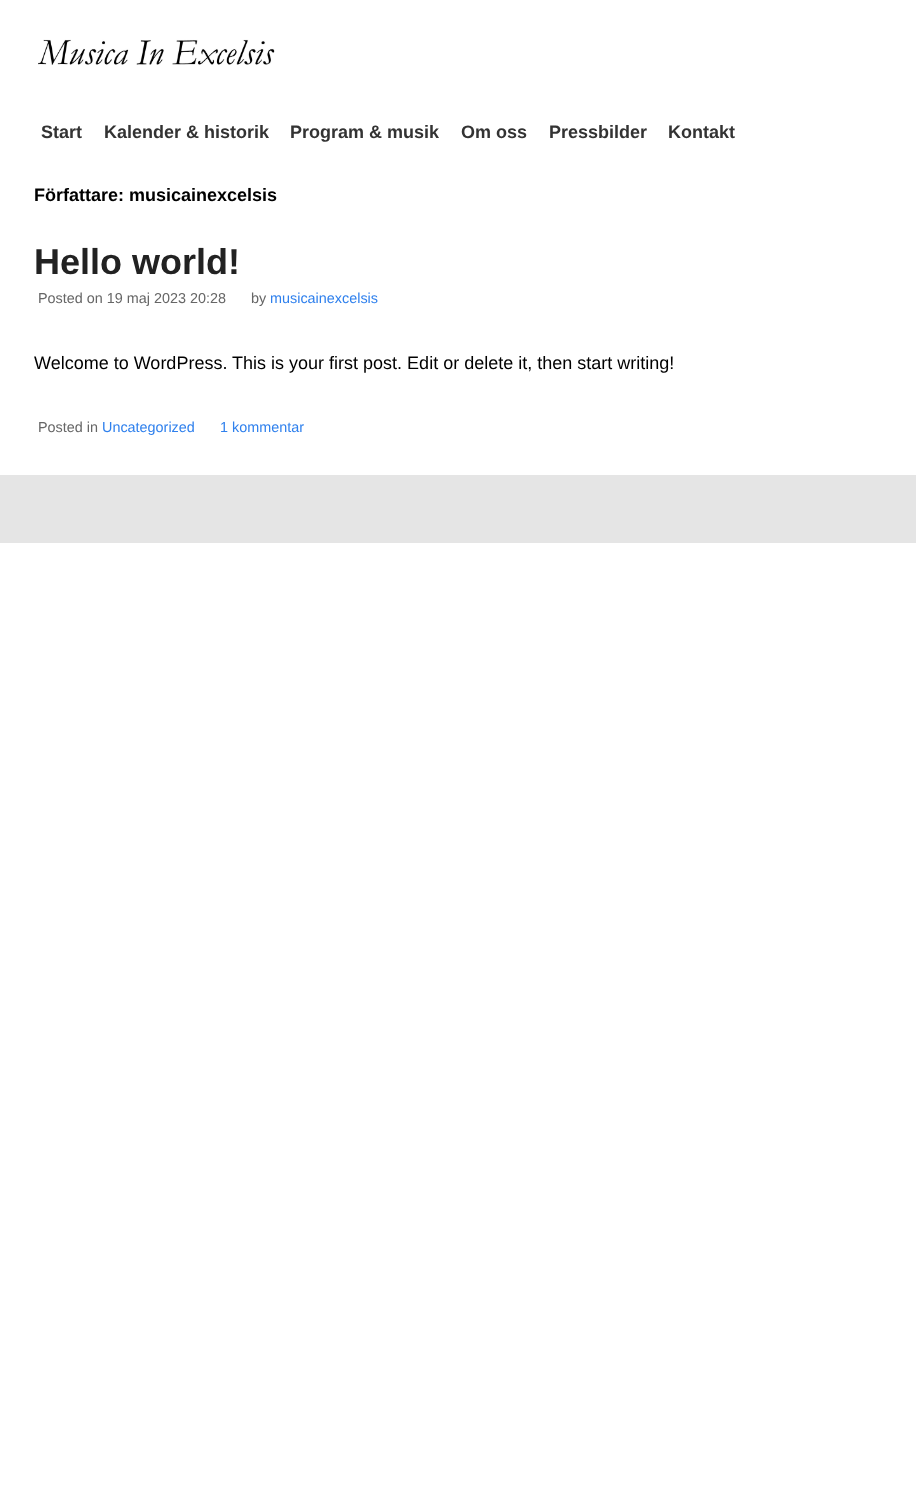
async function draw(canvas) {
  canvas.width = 916;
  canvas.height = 1491;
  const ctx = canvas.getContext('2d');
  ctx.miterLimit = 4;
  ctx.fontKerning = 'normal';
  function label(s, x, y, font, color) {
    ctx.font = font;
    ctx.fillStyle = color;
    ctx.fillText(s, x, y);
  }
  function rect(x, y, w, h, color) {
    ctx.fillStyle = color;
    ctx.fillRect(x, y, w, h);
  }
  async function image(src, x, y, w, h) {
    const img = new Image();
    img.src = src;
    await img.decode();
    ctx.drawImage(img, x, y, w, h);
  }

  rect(0, 0, 916, 1491, '#fff');
  await image('assets/img1.png', 38, 39, 237, 26);
  label('Start', 41, 138, 'bold 18px Liberation Sans', '#333');
  label('Kalender & historik', 104, 138, 'bold 18px Liberation Sans', '#333');
  label('Program & musik', 290, 138, 'bold 18px Liberation Sans', '#333');
  label('Om oss', 461, 138, 'bold 18px Liberation Sans', '#333');
  label('Pressbilder', 549, 138, 'bold 18px Liberation Sans', '#333');
  label('Kontakt', 668, 138, 'bold 18px Liberation Sans', '#333');
  label('Författare: musicainexcelsis', 34, 201, 'bold 18px Liberation Sans', '#000');
  label('Hello world!', 34, 274, 'bold 36px Liberation Sans', '#222');
  label('Posted on 19 maj 2023 20:28', 38, 303, '14.4px Liberation Sans', '#666');
  label('by', 251, 303, '14.4px Liberation Sans', '#666');
  label('musicainexcelsis', 270, 303, '14.4px Liberation Sans', '#2f80ed');
  label('Welcome to WordPress. This is your first post. Edit or delete it, then start writing!', 34, 369, '18px Liberation Sans', '#000');
  label('Posted in', 38, 432, '14.4px Liberation Sans', '#666');
  label('Uncategorized', 102, 432, '14.4px Liberation Sans', '#2f80ed');
  label('1 kommentar', 220, 432, '14.4px Liberation Sans', '#2f80ed');
  rect(0, 475, 916, 68, '#e5e5e5');
}

draw(document.querySelector('canvas'));
